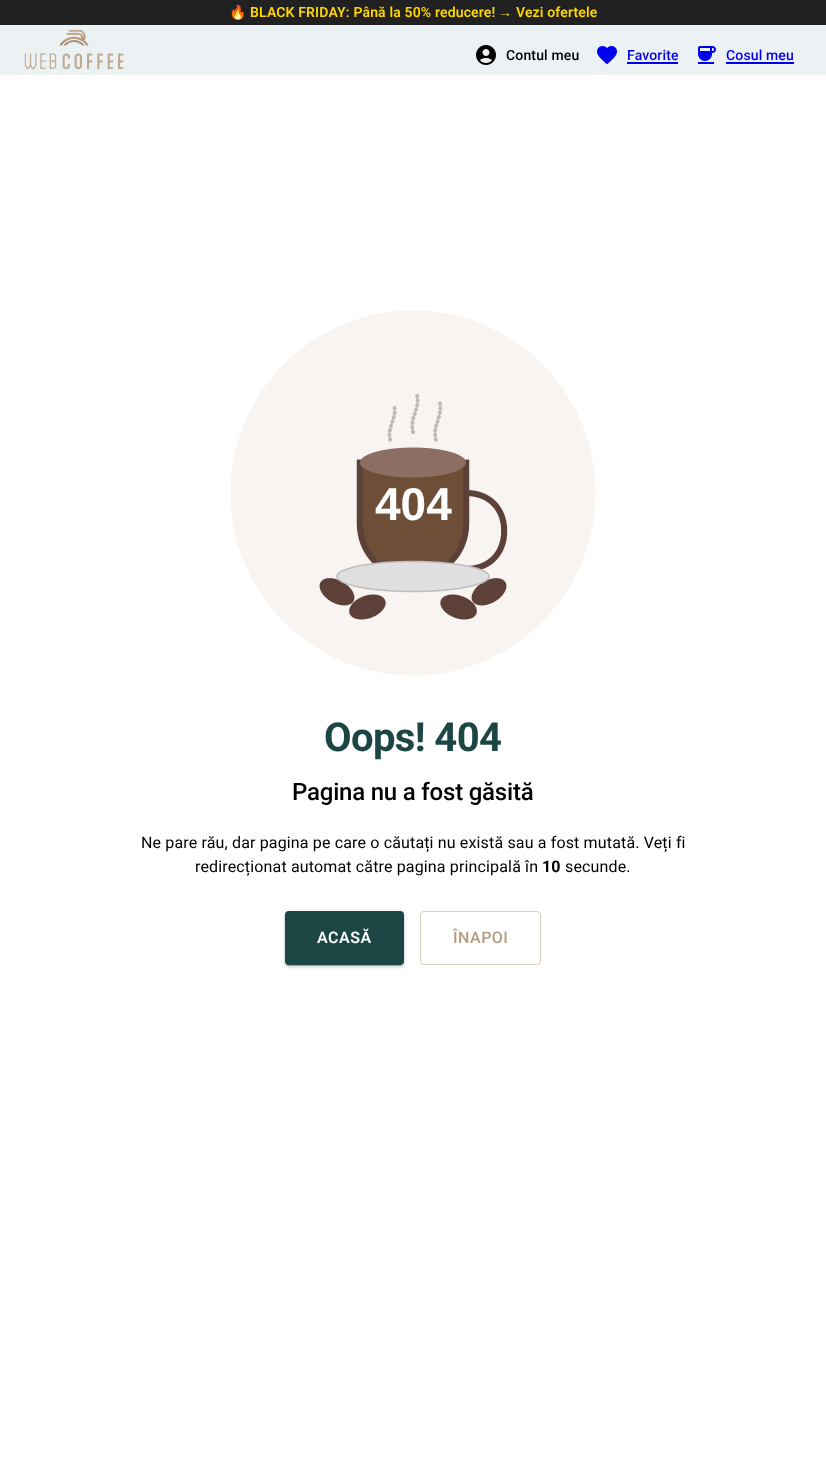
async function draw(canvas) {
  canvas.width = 826;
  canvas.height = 1457;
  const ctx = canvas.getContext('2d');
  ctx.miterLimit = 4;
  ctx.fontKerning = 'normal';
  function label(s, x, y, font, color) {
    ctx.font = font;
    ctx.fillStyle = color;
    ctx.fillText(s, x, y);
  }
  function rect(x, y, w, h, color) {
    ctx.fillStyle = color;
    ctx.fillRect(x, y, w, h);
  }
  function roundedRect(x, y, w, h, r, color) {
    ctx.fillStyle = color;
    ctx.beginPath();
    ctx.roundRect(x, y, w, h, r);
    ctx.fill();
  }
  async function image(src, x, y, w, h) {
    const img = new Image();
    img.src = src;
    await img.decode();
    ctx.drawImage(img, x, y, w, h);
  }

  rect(0, 0, 826, 1457, '#fff');
  rect(0, 25, 826, 50, '#ecf1f4');
  rect(0, 0, 826, 25, '#212121');
  ctx.letterSpacing = '0.15px';
  label('🔥', 229, 17, 'bold 14px Noto Color Emoji', '#ffd700');
  label('BLACK FRIDAY: Până la 50% reducere!', 250, 17, '600 14px Roboto', '#ffd700');
  label('→', 498, 17, 'bold 14px Liberation Sans', '#ffd700');
  label('Vezi ofertele', 516, 17, '600 14px Roboto', '#ffd700');
  await image('assets/img1.png', 24, 29, 100, 41);
  await image('assets/img2.png', 476, 45, 20, 20);
  label('Contul meu', 506, 60, '500 14px Roboto', '#000');
  await image('assets/img3.png', 597, 46, 20, 19);
  label('Favorite', 627, 60, '500 14px Roboto', '#00e');
  rect(627, 62, 51, 2, '#00e');
  await image('assets/img4.png', 698, 46, 18, 18);
  label('Cosul meu', 726, 60, '500 14px Roboto', '#00e');
  rect(726, 62, 68, 2, '#00e');
  await image('assets/img5.png', 230, 310, 366, 366);
  ctx.letterSpacing = '0px';
  label('404', 375, 520, 'bold 46px Liberation Sans', '#fff');
  ctx.letterSpacing = '-0.6px';
  label('Oops! 404', 324, 751, 'bold 40px Roboto', '#1c4644');
  ctx.letterSpacing = '-0.2px';
  label('Pagina nu a fost găsită', 292, 800, '500 24px Roboto', '#000');
  ctx.letterSpacing = '0.15px';
  label('Ne pare rău, dar pagina pe care o căutați nu există sau a fost mutată. Veți fi', 141, 848, '16px Roboto', '#000');
  label('redirecționat automat către pagina principală în', 195, 872, '16px Roboto', '#000');
  label('10', 542, 872, 'bold 16px Roboto', '#000');
  label('secunde.', 565, 872, '16px Roboto', '#000');
  ctx.fillStyle = '#0000001f';
  ctx.filter = 'blur(2.5px)';
  ctx.beginPath();
  ctx.roundRect(285, 912, 119, 54, 4);
  ctx.fill();
  ctx.filter = 'none';
  ctx.fillStyle = '#00000024';
  ctx.filter = 'blur(1px)';
  ctx.beginPath();
  ctx.roundRect(285, 913, 119, 54, 4);
  ctx.fill();
  ctx.filter = 'none';
  ctx.fillStyle = '#00000033';
  ctx.filter = 'blur(0.5px)';
  ctx.beginPath();
  ctx.roundRect(287, 916, 115, 50, 2);
  ctx.fill();
  ctx.filter = 'none';
  roundedRect(285, 911, 119, 54, 4, '#1c4644');
  ctx.letterSpacing = '0.5px';
  label('ACASĂ', 317, 943, '600 16px Roboto', '#fff');
  ctx.beginPath();
  ctx.roundRect(420.5, 911.5, 120, 53, 3.5);
  ctx.strokeStyle = '#d9cdc0';
  ctx.stroke();
  label('ÎNAPOI', 453, 943, '500 16px Roboto', '#b39b80');
}

draw(document.querySelector('canvas'));
